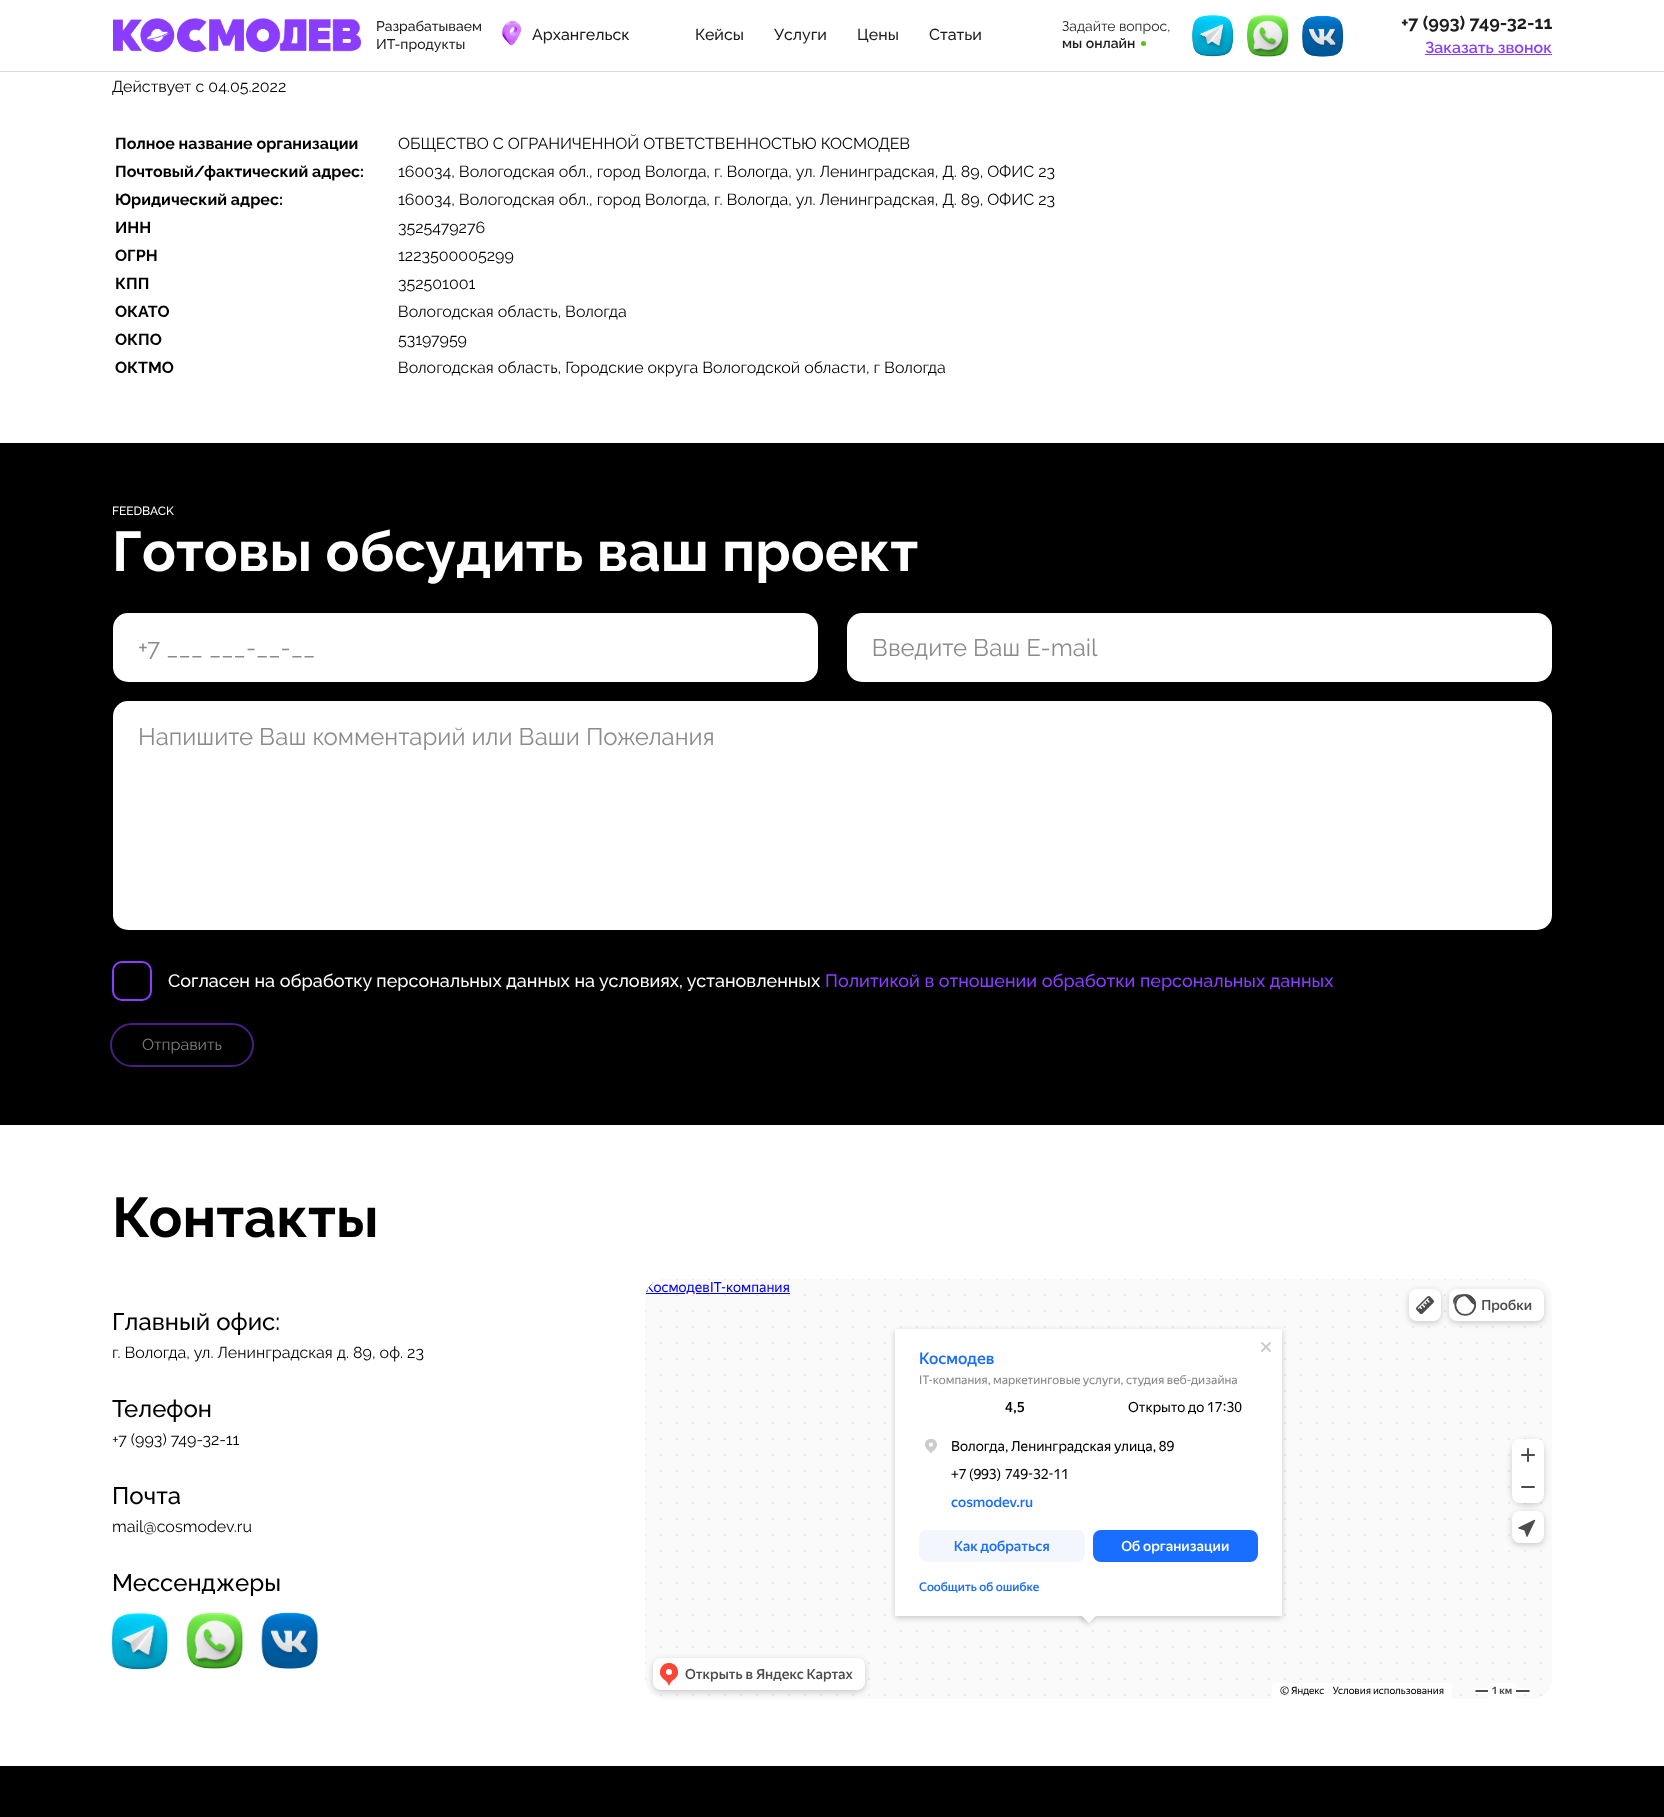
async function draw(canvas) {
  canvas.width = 1664;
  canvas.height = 1817;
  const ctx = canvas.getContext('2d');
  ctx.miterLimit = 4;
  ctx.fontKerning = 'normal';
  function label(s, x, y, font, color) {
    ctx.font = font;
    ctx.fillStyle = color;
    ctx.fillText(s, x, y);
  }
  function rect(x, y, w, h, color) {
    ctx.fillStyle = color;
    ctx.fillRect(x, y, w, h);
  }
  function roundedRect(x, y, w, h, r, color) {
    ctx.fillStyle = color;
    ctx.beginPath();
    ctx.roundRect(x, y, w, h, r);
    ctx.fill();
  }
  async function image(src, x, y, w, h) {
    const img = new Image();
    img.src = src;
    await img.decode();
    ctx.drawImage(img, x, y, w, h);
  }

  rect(0, 0, 1664, 1817, '#fff');
  rect(0, 71, 1664, 1, '#ddd9e2');
  await image('assets/img1.png', 113, 18, 248, 34);
  label('Разрабатываем', 376, 31, '500 14px Raleway', '#1d1d1f');
  label('ИТ-продукты', 376, 49, '500 14px Raleway', '#1d1d1f');
  await image('assets/img2.png', 502, 20, 20, 26);
  label('Архангельск', 532, 40, '500 16px Raleway', '#1d1d1f');
  label('Кейсы', 695, 40, '500 16px Raleway', '#1d1d1f');
  label('Услуги', 774, 40, '500 16px Raleway', '#1d1d1f');
  label('Цены', 857, 40, '500 16px Raleway', '#1d1d1f');
  label('Статьи', 929, 40, '500 16px Raleway', '#1d1d1f');
  label('Задайте вопрос,', 1062, 31, '14px Raleway', '#1d1d1f');
  label('мы онлайн', 1062, 48, '600 14px Raleway', '#1d1d1f');
  ctx.fillStyle = '#62bd19';
  ctx.beginPath();
  ctx.arc(1143.5, 43.5, 2.5, 0, 2 * Math.PI);
  ctx.fill();
  await image('assets/img3.png', 1192, 15, 42, 42);
  await image('assets/img4.png', 1247, 15, 42, 42);
  await image('assets/img5.png', 1302, 15, 42, 42);
  label('+7 (993) 749-32-11', 1401, 29, 'bold 18px Raleway', '#1d1d1f');
  label('Заказать звонок', 1425, 53, '600 16px Raleway', '#8b3dff');
  rect(1425, 54, 127, 1, '#8b3dff');
  label('Действует с 04.05.2022', 112, 92, '16px Raleway', '#000');
  label('Полное название организации', 115, 149, 'bold 16px Raleway', '#000');
  label('ОБЩЕСТВО С ОГРАНИЧЕННОЙ ОТВЕТСТВЕННОСТЬЮ КОСМОДЕВ', 398, 149, '16px Raleway', '#000');
  label('Почтовый/фактический адрес:', 115, 177, 'bold 16px Raleway', '#000');
  label('160034, Вологодская обл., город Вологда, г. Вологда, ул. Ленинградская, Д. 89, ОФИС 23', 398, 177, '16px Raleway', '#000');
  label('Юридический адрес:', 115, 205, 'bold 16px Raleway', '#000');
  label('160034, Вологодская обл., город Вологда, г. Вологда, ул. Ленинградская, Д. 89, ОФИС 23', 398, 205, '16px Raleway', '#000');
  label('ИНН', 115, 233, 'bold 16px Raleway', '#000');
  label('3525479276', 398, 233, '16px Raleway', '#000');
  label('ОГРН', 115, 261, 'bold 16px Raleway', '#000');
  label('1223500005299', 398, 261, '16px Raleway', '#000');
  label('КПП', 115, 289, 'bold 16px Raleway', '#000');
  label('352501001', 398, 289, '16px Raleway', '#000');
  label('ОКАТО', 115, 317, 'bold 16px Raleway', '#000');
  label('Вологодская область, Вологда', 398, 317, '16px Raleway', '#000');
  label('ОКПО', 115, 345, 'bold 16px Raleway', '#000');
  label('53197959', 398, 345, '16px Raleway', '#000');
  label('ОКТМО', 115, 373, 'bold 16px Raleway', '#000');
  label('Вологодская область, Городские округа Вологодской области, г Вологда', 398, 373, '16px Raleway', '#000');
  rect(0, 443, 1664, 682, '#000');
  label('FEEDBACK', 112, 515, '500 12px Raleway', '#fff');
  label('Готовы обсудить ваш проект', 112, 571, 'bold 56px Raleway', '#fff');
  roundedRect(113, 613, 705, 69, 15, '#fff');
  label('+7 ___ ___-__-__', 138, 656, '24px Raleway', '#8b8b8b');
  roundedRect(847, 613, 705, 69, 15, '#fff');
  label('Введите Ваш E-mail', 872, 656, '24px Raleway', '#8b8b8b');
  roundedRect(113, 701, 1439, 229, 15, '#fff');
  label('Напишите Ваш комментарий или Ваши Пожелания', 138, 745, '24px Raleway', '#8b8b8b');
  ctx.beginPath();
  ctx.roundRect(113, 962, 38, 38, 9);
  ctx.strokeStyle = '#8b3dff';
  ctx.lineWidth = 2;
  ctx.stroke();
  label('Согласен на обработку персональных данных на условиях, установленных', 168, 987, '500 18px Raleway', '#fff');
  label('Политикой в отношении обработки персональных данных', 825, 987, '500 18px Raleway', '#8b3dff');
  ctx.beginPath();
  ctx.roundRect(111, 1024, 142, 42, 21);
  ctx.strokeStyle = '#461f80';
  ctx.stroke();
  label('Отправить', 142, 1050, '16px Raleway', '#808080');
  label('Контакты', 112, 1237, 'bold 56px Raleway', '#000');
  label('Главный офис:', 112, 1330, '500 24px Raleway', '#000');
  label('г. Вологда, ул. Ленинградская д. 89, оф. 23', 112, 1358, '16px Raleway', '#000');
  label('Телефон', 112, 1417, '500 24px Raleway', '#000');
  label('+7 (993) 749-32-11', 112, 1445, '16px Raleway', '#000');
  label('Почта', 112, 1504, '500 24px Raleway', '#000');
  label('mail@cosmodev.ru', 112, 1532, '16px Raleway', '#000');
  label('Мессенджеры', 112, 1591, '500 24px Raleway', '#000');
  await image('assets/img6.png', 111, 1613, 57, 57);
  await image('assets/img7.png', 186, 1612, 57, 57);
  await image('assets/img8.png', 261, 1612, 58, 57);
  await image('assets/img9.png', 645, 1279, 907, 420);
  rect(0, 1766, 1664, 51, '#000');
}

draw(document.querySelector('canvas'));
